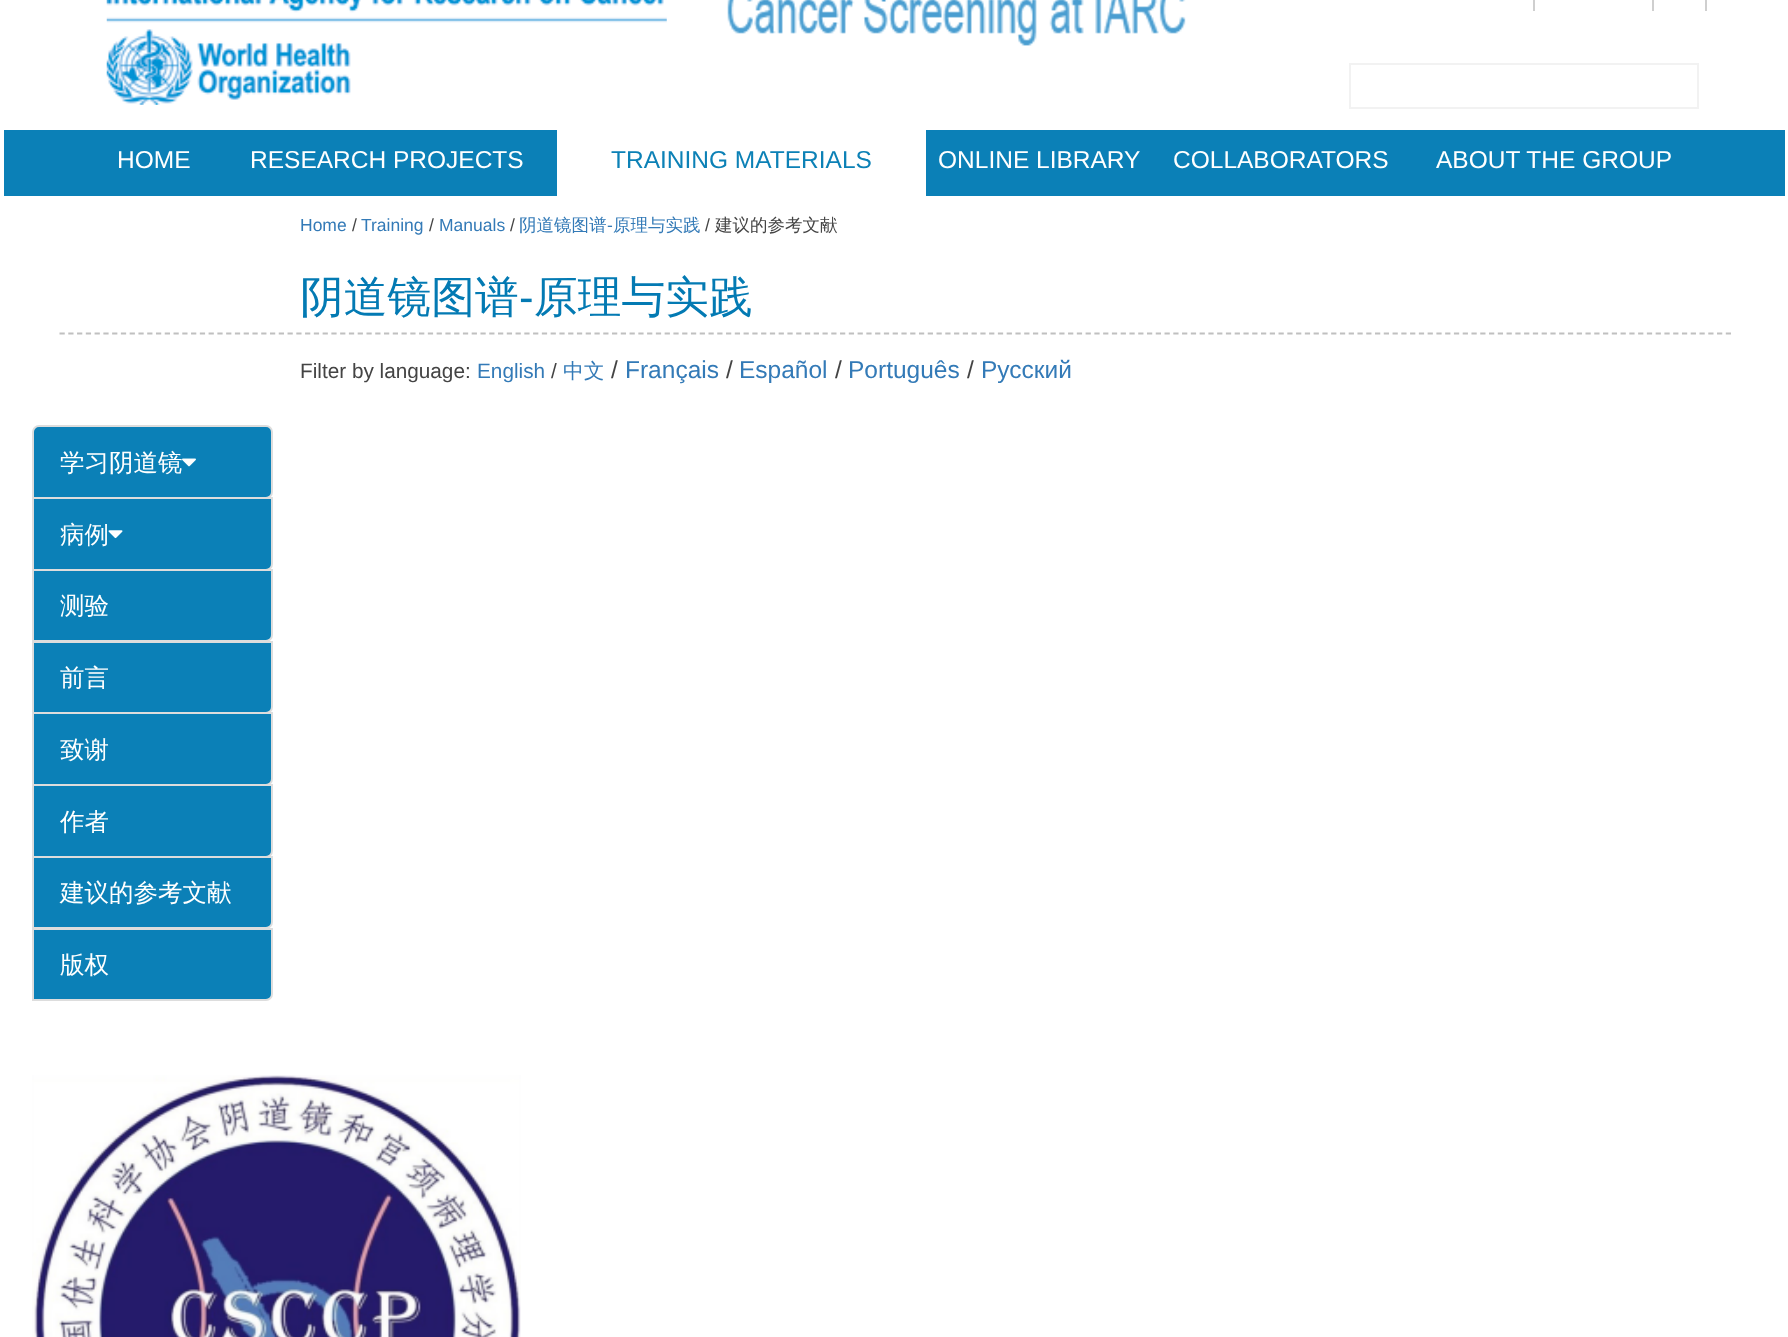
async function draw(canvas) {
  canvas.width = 1788;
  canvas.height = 1337;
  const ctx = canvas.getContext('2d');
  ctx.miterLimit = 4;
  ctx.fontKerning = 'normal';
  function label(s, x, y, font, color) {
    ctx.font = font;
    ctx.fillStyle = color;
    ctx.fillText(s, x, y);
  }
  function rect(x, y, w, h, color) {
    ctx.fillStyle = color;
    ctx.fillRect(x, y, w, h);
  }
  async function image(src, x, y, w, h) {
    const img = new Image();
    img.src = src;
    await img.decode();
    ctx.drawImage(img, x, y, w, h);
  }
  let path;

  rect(0, 0, 1788, 1337, '#fff');
  await image('assets/img1.png', 106, 0, 561, 105);
  await image('assets/img2.png', 727, 0, 459, 46);
  rect(1533, 0, 2, 11, '#cfcfcf');
  rect(1652, 0, 2, 11, '#cfcfcf');
  rect(1705, 0, 2, 11, '#cfcfcf');
  ctx.strokeStyle = '#f2f2f2';
  ctx.lineWidth = 2;
  ctx.strokeRect(1350, 64, 348, 44);
  rect(4, 130, 1781, 66, '#0b80b7');
  label('HOME', 117, 168, '24.5px Liberation Sans', '#fff');
  label('RESEARCH PROJECTS', 250, 168, '24.5px Liberation Sans', '#fff');
  rect(557, 130, 369, 66, '#fff');
  label('TRAINING MATERIALS', 611, 168, '24.5px Liberation Sans', '#0c81b6');
  label('ONLINE LIBRARY', 938, 168, '24.5px Liberation Sans', '#fff');
  label('COLLABORATORS', 1173, 168, '24.5px Liberation Sans', '#fff');
  label('ABOUT THE GROUP', 1436, 168, '24.5px Liberation Sans', '#fff');
  label('Home', 300, 231, '17.5px Liberation Sans', '#337ab7');
  label('/', 352, 231, '17.5px Liberation Sans', '#444');
  label('Training', 361, 231, '17.5px Liberation Sans', '#337ab7');
  label('/', 429, 231, '17.5px Liberation Sans', '#444');
  label('Manuals', 439, 231, '17.5px Liberation Sans', '#337ab7');
  label('/', 510, 231, '17.5px Liberation Sans', '#444');
  label('阴道镜图谱', 519, 231, '500 17.5px WenQuanYi Zen Hei', '#337ab7');
  label('-', 607, 231, '17.5px Liberation Sans', '#337ab7');
  label('原理与实践', 613, 231, '500 17.5px WenQuanYi Zen Hei', '#337ab7');
  label('/', 705, 231, '17.5px Liberation Sans', '#444');
  label('建议的参考文献', 715, 231, '500 17.5px WenQuanYi Zen Hei', '#444');
  path = new Path2D('M59.5 333.5H1731');
  ctx.strokeStyle = '#c0c0c0';
  ctx.lineWidth = 1.8;
  ctx.setLineDash([5.25, 3.52]);
  ctx.stroke(path);
  label('阴道镜图谱', 300, 312, '500 43.75px WenQuanYi Zen Hei', '#037ab3');
  label('-', 519, 312, '43.75px Liberation Sans', '#037ab3');
  label('原理与实践', 534, 312, '500 43.75px WenQuanYi Zen Hei', '#037ab3');
  label('Filter by language:', 300, 378, '20.75px Liberation Sans', '#444');
  label('English', 477, 378, '20.75px Liberation Sans', '#337ab7');
  label('/', 551, 378, '20.75px Liberation Sans', '#444');
  label('中文', 563, 378, '500 20.75px WenQuanYi Zen Hei', '#337ab7');
  label('/', 611, 378, '24.5px Liberation Sans', '#444');
  label('Français', 625, 378, '24.5px Liberation Sans', '#337ab7');
  label('/', 726, 378, '24.5px Liberation Sans', '#444');
  label('Español', 739, 378, '24.5px Liberation Sans', '#337ab7');
  label('/', 835, 378, '24.5px Liberation Sans', '#444');
  label('Português', 848, 378, '24.5px Liberation Sans', '#337ab7');
  label('/', 967, 378, '24.5px Liberation Sans', '#444');
  label('Русский', 981, 378, '24.5px Liberation Sans', '#337ab7');
  ctx.fillStyle = '#0b80b7';
  ctx.beginPath();
  ctx.roundRect(33, 426, 239, 72, [6, 6, 6, 0]);
  ctx.fill();
  ctx.strokeStyle = '#ddd';
  ctx.lineWidth = 2;
  ctx.setLineDash([]);
  ctx.stroke();
  label('学习阴道镜', 60, 471, '500 24.5px WenQuanYi Zen Hei', '#fff');
  await image('assets/img3.png', 182, 458, 14, 9);
  ctx.fillStyle = '#0b80b7';
  ctx.beginPath();
  ctx.roundRect(33, 498, 239, 72, [0, 0, 6, 0]);
  ctx.fill();
  ctx.stroke();
  label('病例', 60, 543, '500 24.5px WenQuanYi Zen Hei', '#fff');
  await image('assets/img4.png', 108, 530, 15, 9);
  ctx.fillStyle = '#0b80b7';
  ctx.beginPath();
  ctx.roundRect(33, 570, 239, 71, [0, 0, 6, 0]);
  ctx.fill();
  ctx.stroke();
  label('测验', 60, 614, '500 24.5px WenQuanYi Zen Hei', '#fff');
  ctx.fillStyle = '#0b80b7';
  ctx.beginPath();
  ctx.roundRect(33, 642, 239, 71, [0, 0, 6, 0]);
  ctx.fill();
  ctx.stroke();
  label('前言', 60, 686, '500 24.5px WenQuanYi Zen Hei', '#fff');
  ctx.fillStyle = '#0b80b7';
  ctx.beginPath();
  ctx.roundRect(33, 713, 239, 72, [0, 0, 6, 0]);
  ctx.fill();
  ctx.stroke();
  label('致谢', 60, 758, '500 24.5px WenQuanYi Zen Hei', '#fff');
  ctx.fillStyle = '#0b80b7';
  ctx.beginPath();
  ctx.roundRect(33, 785, 239, 72, [0, 0, 6, 0]);
  ctx.fill();
  ctx.stroke();
  label('作者', 60, 830, '500 24.5px WenQuanYi Zen Hei', '#fff');
  ctx.fillStyle = '#0b80b7';
  ctx.beginPath();
  ctx.roundRect(33, 857, 239, 71, [0, 0, 6, 0]);
  ctx.fill();
  ctx.stroke();
  label('建议的参考文献', 60, 901, '500 24.5px WenQuanYi Zen Hei', '#fff');
  ctx.fillStyle = '#0b80b7';
  ctx.beginPath();
  ctx.roundRect(33, 929, 239, 71, [0, 0, 6, 0]);
  ctx.fill();
  ctx.stroke();
  label('版权', 60, 973, '500 24.5px WenQuanYi Zen Hei', '#fff');
  await image('assets/img5.png', 32, 1075, 489, 262);
}

draw(document.querySelector('canvas'));
